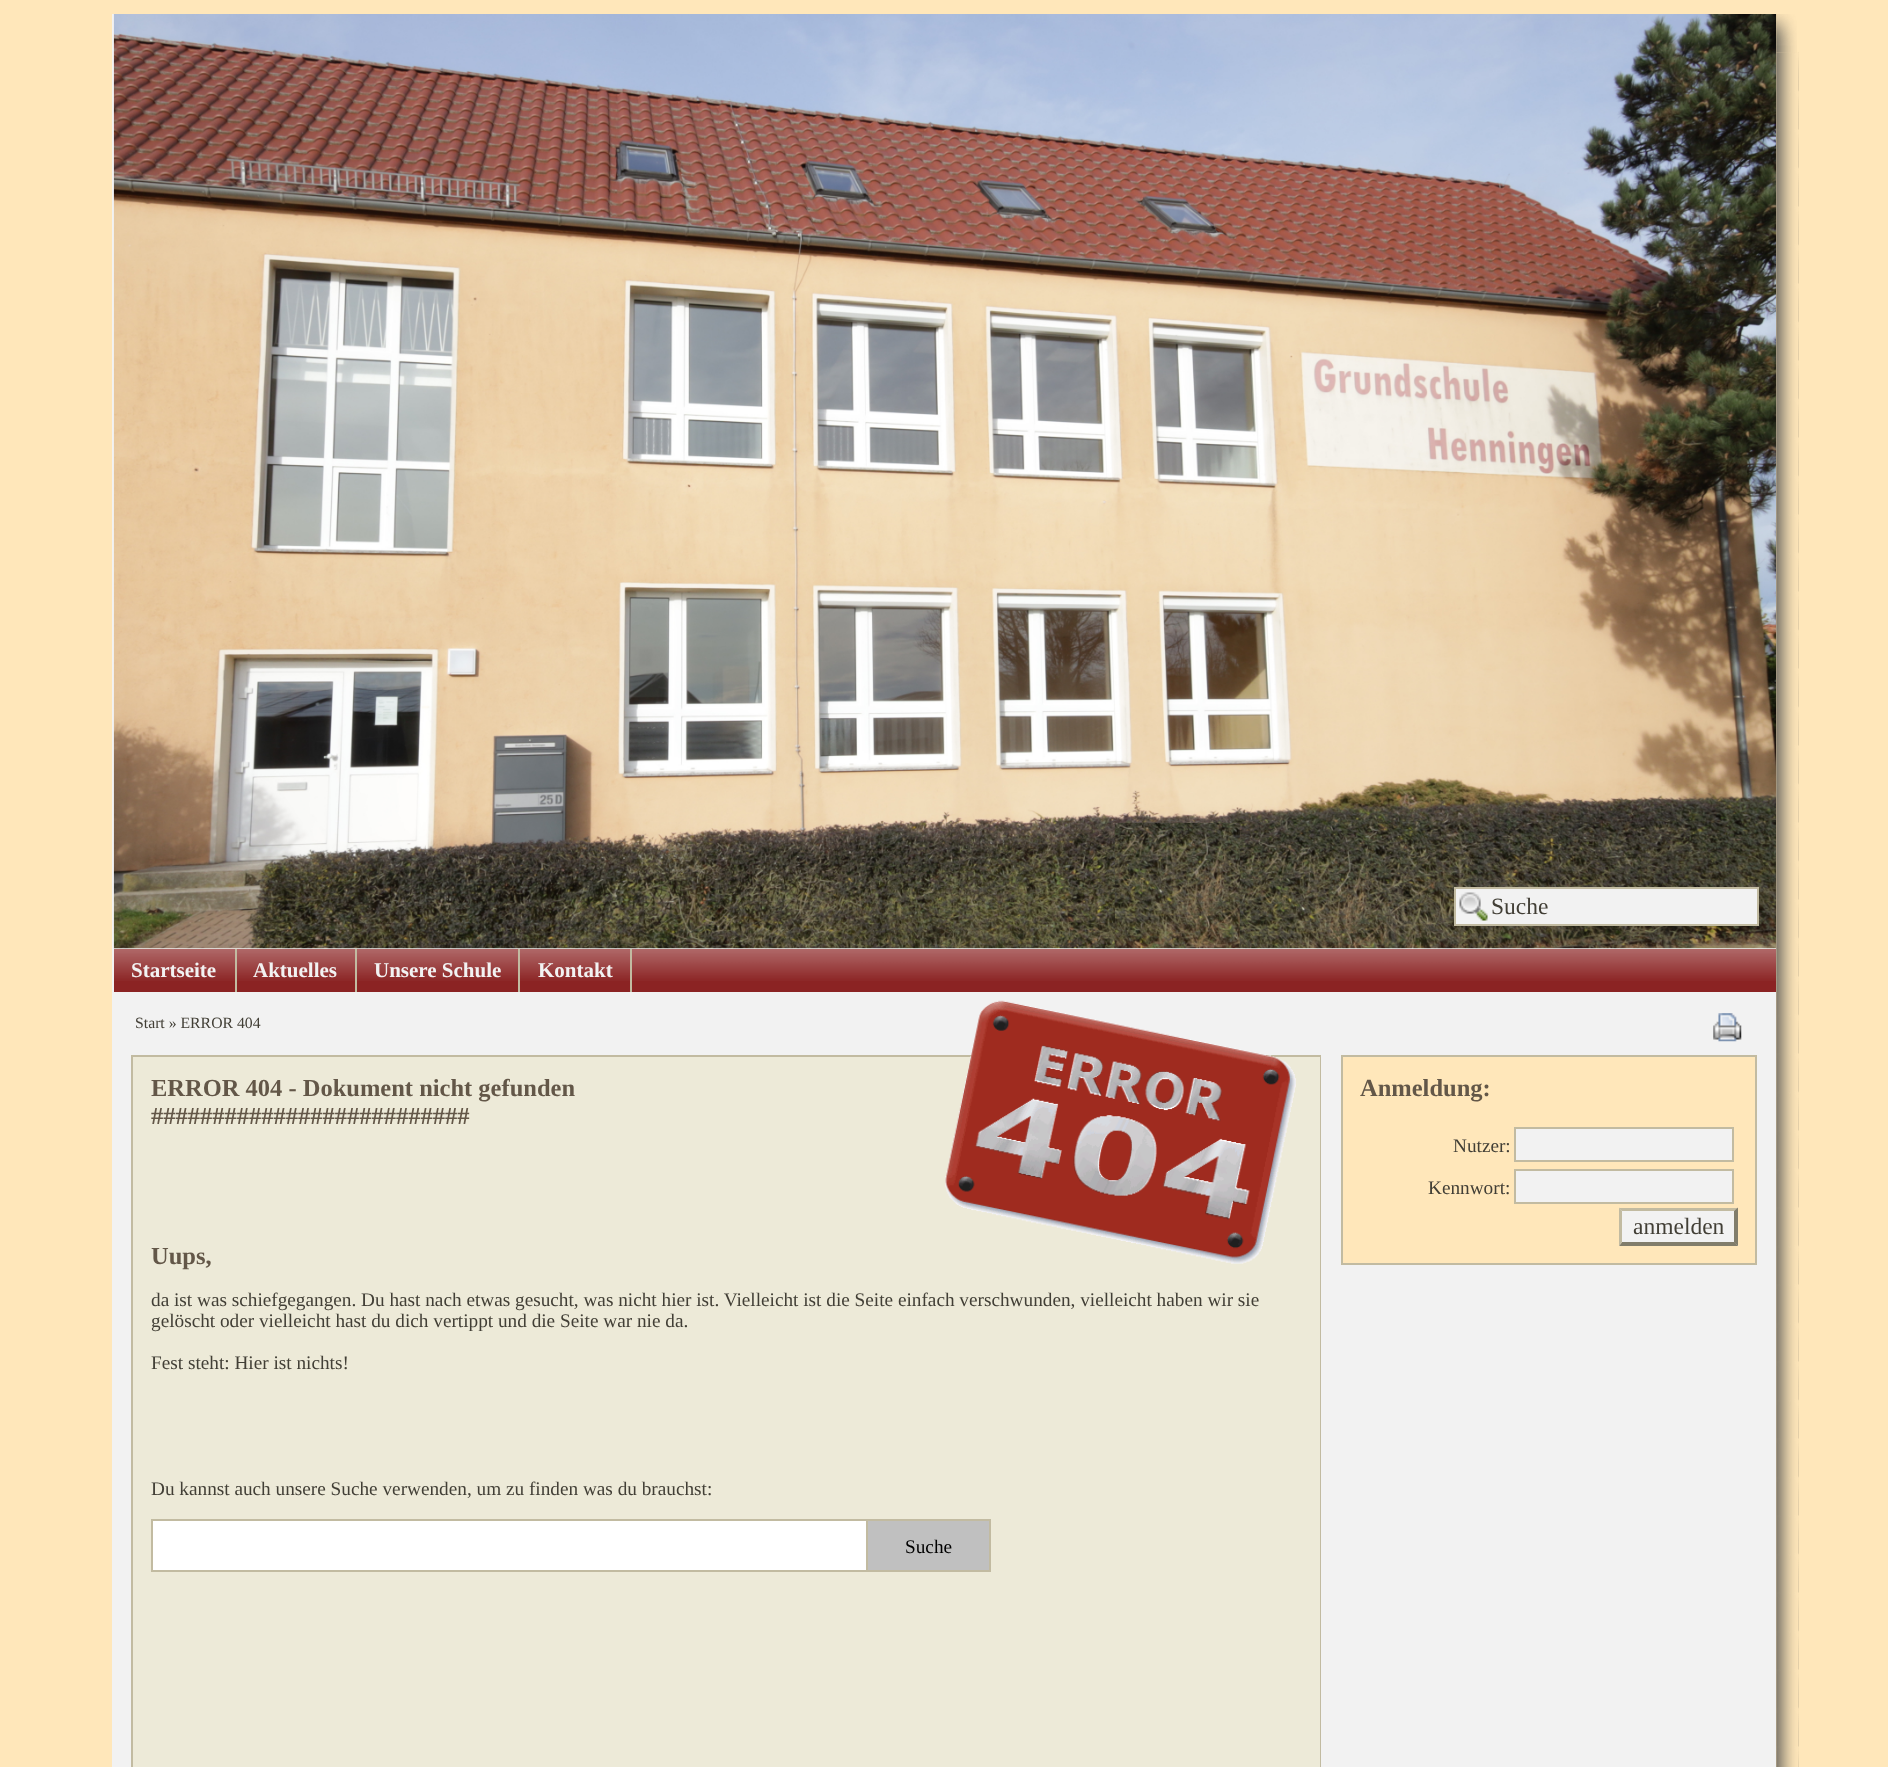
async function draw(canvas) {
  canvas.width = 1888;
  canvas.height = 1767;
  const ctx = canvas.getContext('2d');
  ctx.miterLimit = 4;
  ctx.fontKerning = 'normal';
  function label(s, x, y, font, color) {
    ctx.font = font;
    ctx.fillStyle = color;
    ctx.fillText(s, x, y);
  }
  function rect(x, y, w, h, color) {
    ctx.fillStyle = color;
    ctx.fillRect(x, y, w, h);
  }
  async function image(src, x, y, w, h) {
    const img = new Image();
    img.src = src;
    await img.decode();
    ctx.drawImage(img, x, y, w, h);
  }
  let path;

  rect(0, 0, 1888, 1767, '#ffe7ba');
  rect(112, 14, 1664, 1753, '#f2f2f2');
  await image('assets/img1.png', 113, 14, 1664, 935);
  rect(114, 949, 1662, 43, '#8b2323');
  await image('assets/img5.png', 114, 949, 1663, 32);
  await image('assets/img2.png', 1776, 52, 23, 1715);
  await image('assets/img3.png', 1776, 14, 21, 39);
  rect(1456, 889, 301, 35, '#f2f2f2');
  await image('assets/img4.png', 1459, 892, 29, 29);
  ctx.strokeStyle = '#c2bba1';
  ctx.lineWidth = 2;
  ctx.strokeRect(1455, 888, 303, 37);
  label('Suche', 1491, 914, '23.5px Liberation Serif', '#423f36');
  rect(235, 949, 2, 43, '#c2bba1');
  label('Startseite', 131, 977, 'bold 21px Liberation Serif', '#f2f2f2');
  rect(355, 949, 2, 43, '#c2bba1');
  label('Aktuelles', 253, 977, 'bold 21px Liberation Serif', '#f2f2f2');
  rect(518, 949, 2, 43, '#c2bba1');
  label('Unsere Schule', 374, 977, 'bold 21px Liberation Serif', '#f2f2f2');
  rect(630, 949, 2, 43, '#c2bba1');
  label('Kontakt', 538, 977, 'bold 21px Liberation Serif', '#f2f2f2');
  label('Start » ERROR 404', 135, 1028, '15.75px Liberation Serif', '#423f36');
  await image('assets/img6.png', 1713, 1013, 29, 29);
  ctx.strokeRect(132, 1056, 1188, 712);
  rect(133, 1057, 1187, 710, '#edead8');
  label('ERROR 404 - Dokument nicht gefunden', 151, 1096, 'bold 24.5px Liberation Serif', '#635748');
  label('##########################', 151, 1124, 'bold 24.5px Liberation Serif', '#635748');
  label('Uups,', 151, 1264, 'bold 24.5px Liberation Serif', '#635748');
  await image('assets/img7.png', 945, 1000, 351, 264);
  label('da ist was schiefgegangen. Du hast nach etwas gesucht, was nicht hier ist. Vielleicht ist die Seite einfach verschwunden, vielleicht haben wir sie', 151, 1306, '19.25px Liberation Serif', '#423f36');
  label('gelöscht oder vielleicht hast du dich vertippt und die Seite war nie da.', 151, 1327, '19.25px Liberation Serif', '#423f36');
  label('Fest steht: Hier ist nichts!', 151, 1369, '19.25px Liberation Serif', '#423f36');
  label('Du kannst auch unsere Suche verwenden, um zu finden was du brauchst:', 151, 1495, '19.25px Liberation Serif', '#423f36');
  ctx.fillStyle = '#fff';
  ctx.beginPath();
  ctx.rect(152, 1520, 715, 51);
  ctx.fill();
  ctx.stroke();
  rect(868, 1521, 121, 49, '#c0c0c0');
  rect(868, 1519, 123, 2, '#c2bba1');
  rect(989, 1519, 2, 53, '#c2bba1');
  rect(868, 1570, 123, 2, '#c2bba1');
  label('Suche', 905, 1553, '19.25px Liberation Serif', '#000');
  ctx.fillStyle = '#ffe7ba';
  ctx.beginPath();
  ctx.rect(1342, 1056, 414, 208);
  ctx.fill();
  ctx.stroke();
  label('Anmeldung:', 1360, 1096, 'bold 24.5px Liberation Serif', '#635748');
  label('Nutzer:', 1453, 1152, '19.25px Liberation Serif', '#423f36');
  ctx.fillStyle = '#f2f2f2';
  ctx.beginPath();
  ctx.rect(1515, 1128, 218, 33);
  ctx.fill();
  ctx.stroke();
  label('Kennwort:', 1428, 1194, '19.25px Liberation Serif', '#423f36');
  ctx.fillStyle = '#f2f2f2';
  ctx.beginPath();
  ctx.rect(1515, 1170, 218, 33);
  ctx.fill();
  ctx.stroke();
  rect(1619, 1208, 119, 38, '#f2f2f2');
  ctx.fillStyle = '#c2bba1';
  path = new Path2D('M1619 1208H1738L1734 1211H1622Z');
  ctx.fill(path);
  ctx.fillStyle = '#817d6b';
  path = new Path2D('M1738 1207.5V1246L1734 1242.5V1211Z');
  ctx.fill(path);
  path = new Path2D('M1738 1246H1619L1622 1242H1734Z');
  ctx.fill(path);
  ctx.fillStyle = '#c2bba1';
  path = new Path2D('M1619 1246V1207.5L1622 1211V1242.5Z');
  ctx.fill(path);
  label('anmelden', 1633, 1234, '23.5px Liberation Serif', '#423f36');
}

draw(document.querySelector('canvas'));
